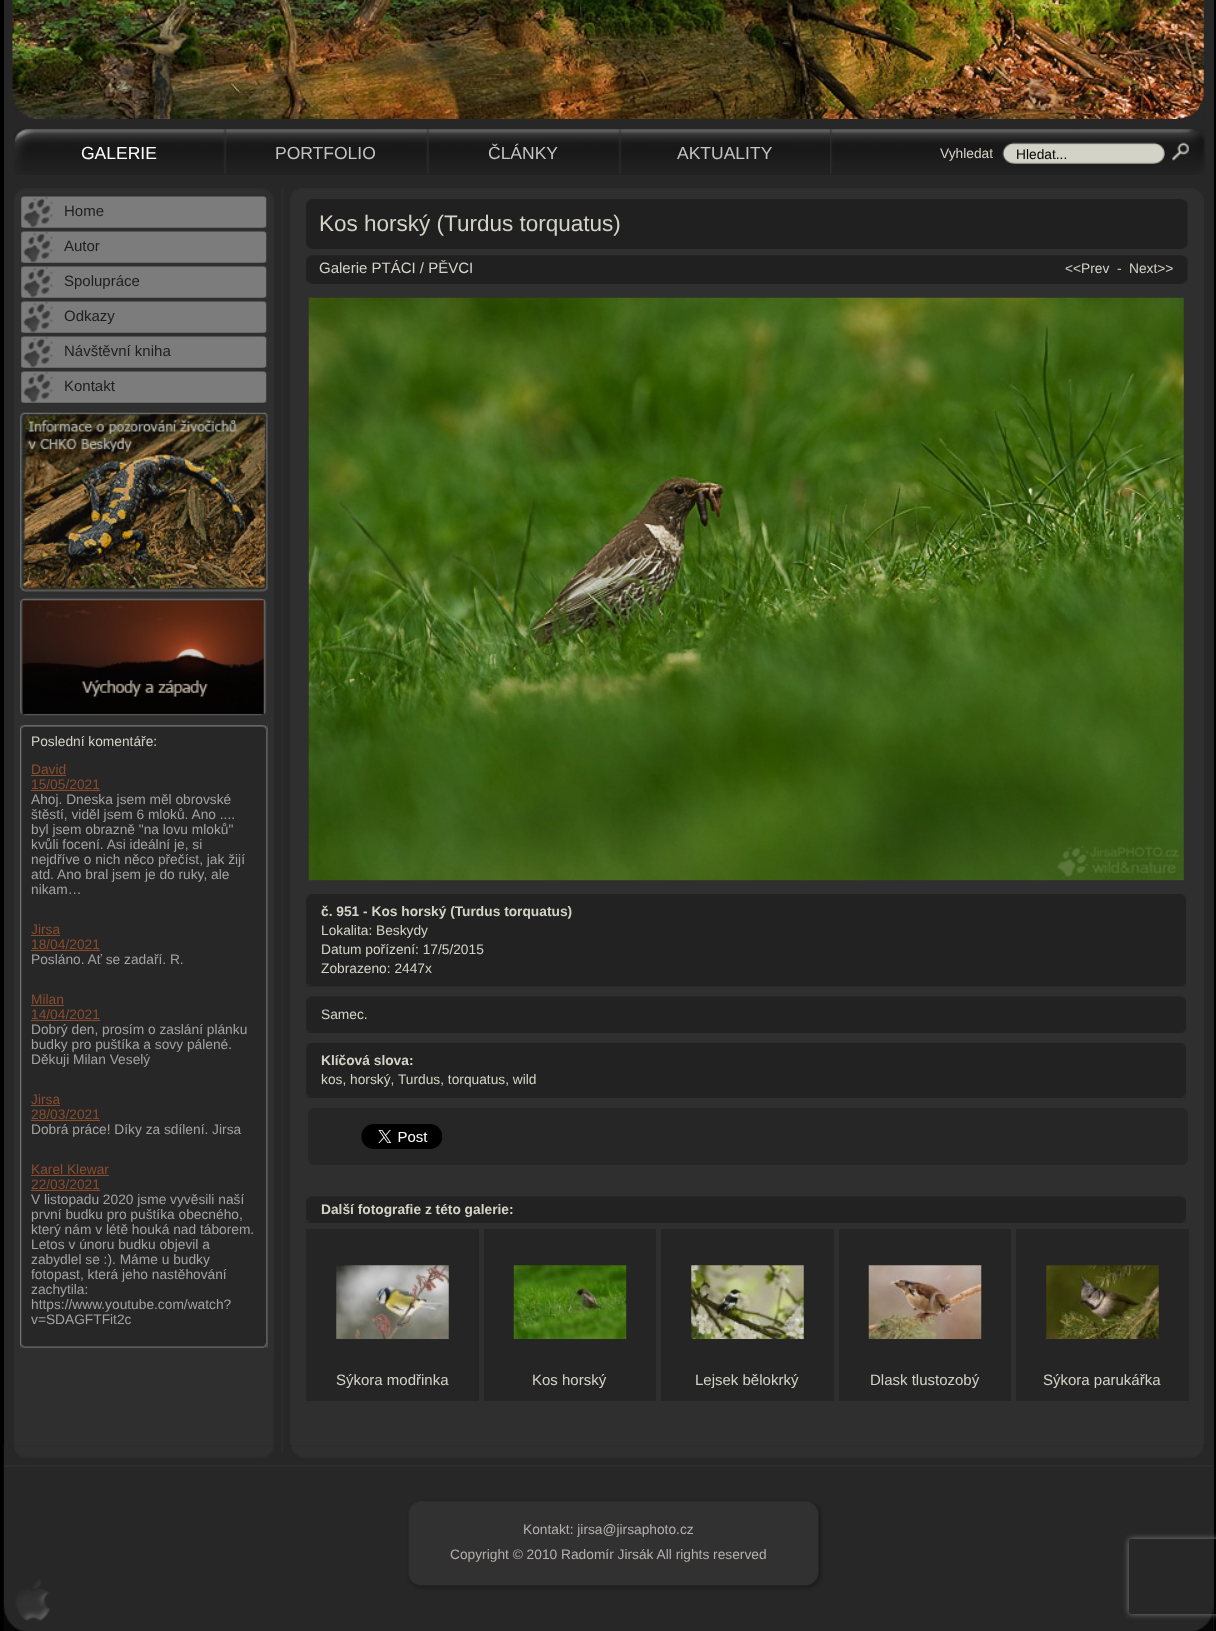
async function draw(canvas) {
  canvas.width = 1216;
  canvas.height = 1631;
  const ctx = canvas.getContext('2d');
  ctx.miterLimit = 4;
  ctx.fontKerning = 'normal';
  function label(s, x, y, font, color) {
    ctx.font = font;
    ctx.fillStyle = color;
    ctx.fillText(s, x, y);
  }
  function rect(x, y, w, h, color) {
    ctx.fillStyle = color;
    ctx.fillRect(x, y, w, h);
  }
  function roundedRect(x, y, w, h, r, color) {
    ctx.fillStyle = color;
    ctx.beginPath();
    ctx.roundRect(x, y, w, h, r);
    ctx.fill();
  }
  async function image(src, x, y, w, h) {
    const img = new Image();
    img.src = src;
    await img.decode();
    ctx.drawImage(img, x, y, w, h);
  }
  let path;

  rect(0, 0, 1216, 1631, '#000');
  rect(4, 0, 1210, 1631, '#272727');
  await image('assets/img1.png', 12, 0, 1192, 119);
  await image('assets/img2.png', 14, 129, 1192, 46);
  label('GALERIE', 81, 159, '17.5px Liberation Sans', '#fff');
  label('PORTFOLIO', 275, 159, '17.5px Liberation Sans', '#c3c3c3');
  label('ČLÁNKY', 488, 159, '17.5px Liberation Sans', '#c3c3c3');
  label('AKTUALITY', 677, 159, '17.5px Liberation Sans', '#c3c3c3');
  label('Vyhledat', 940, 158, '13.75px Liberation Sans', '#d3d3c7');
  await image('assets/img3.png', 1002, 142, 163, 22);
  label('Hledat...', 1016, 159, '13.75px Liberation Sans', '#000');
  await image('assets/img4.png', 1172, 142, 17, 19);
  await image('assets/img5.png', 14, 188, 276, 1257);
  rect(273, 188, 1, 1170, '#2f2f2f');
  await image('assets/img6.png', 14, 188, 260, 10);
  await image('assets/img7.png', 21, 196, 246, 32);
  label('Home', 64, 216, '15px Liberation Sans', '#1f1e1e');
  await image('assets/img7.png', 21, 231, 246, 32);
  label('Autor', 64, 251, '15px Liberation Sans', '#1f1e1e');
  await image('assets/img7.png', 21, 266, 246, 32);
  label('Spolupráce', 64, 286, '15px Liberation Sans', '#1f1e1e');
  await image('assets/img8.png', 21, 301, 246, 32);
  label('Odkazy', 64, 321, '15px Liberation Sans', '#1f1e1e');
  await image('assets/img7.png', 21, 336, 246, 32);
  label('Návštěvní kniha', 64, 356, '15px Liberation Sans', '#1f1e1e');
  await image('assets/img7.png', 21, 371, 246, 32);
  label('Kontakt', 64, 391, '15px Liberation Sans', '#1f1e1e');
  await image('assets/img9.png', 20, 412, 248, 180);
  await image('assets/img10.png', 20, 597, 247, 119);
  await image('assets/img11.png', 20, 725, 248, 623);
  await image('assets/img12.png', 20, 725, 248, 5);
  await image('assets/img13.png', 20, 1343, 248, 5);
  label('Poslední komentáře:', 31, 746, '13.75px Liberation Sans', '#d3d3c7');
  label('David', 31, 774, '13.75px Liberation Sans', '#8a4c2e');
  rect(31, 775, 35, 1, '#8a4c2e');
  label('15/05/2021', 31, 789, '13.75px Liberation Sans', '#8a4c2e');
  rect(31, 790, 69, 1, '#8a4c2e');
  label('Ahoj. Dneska jsem měl obrovské', 31, 804, '13.75px Liberation Sans', '#a2a2a2');
  label('štěstí, viděl jsem 6 mloků. Ano ....', 31, 819, '13.75px Liberation Sans', '#a2a2a2');
  label('byl jsem obrazně "na lovu mloků"', 31, 834, '13.75px Liberation Sans', '#a2a2a2');
  label('kvůli focení. Asi ideální je, si', 31, 849, '13.75px Liberation Sans', '#a2a2a2');
  label('nejdříve o nich něco přečíst, jak žijí', 31, 864, '13.75px Liberation Sans', '#a2a2a2');
  label('atd. Ano bral jsem je do ruky, ale', 31, 879, '13.75px Liberation Sans', '#a2a2a2');
  label('nikam…', 31, 894, '13.75px Liberation Sans', '#a2a2a2');
  label('Jirsa', 31, 934, '13.75px Liberation Sans', '#8a4c2e');
  rect(31, 935, 29, 1, '#8a4c2e');
  label('18/04/2021', 31, 949, '13.75px Liberation Sans', '#8a4c2e');
  rect(31, 950, 69, 1, '#8a4c2e');
  label('Posláno. Ať se zadaří. R.', 31, 964, '13.75px Liberation Sans', '#a2a2a2');
  label('Milan', 31, 1004, '13.75px Liberation Sans', '#8a4c2e');
  rect(31, 1005, 33, 1, '#8a4c2e');
  label('14/04/2021', 31, 1019, '13.75px Liberation Sans', '#8a4c2e');
  rect(31, 1020, 69, 1, '#8a4c2e');
  label('Dobrý den, prosím o zaslání plánku', 31, 1034, '13.75px Liberation Sans', '#a2a2a2');
  label('budky pro puštíka a sovy pálené.', 31, 1049, '13.75px Liberation Sans', '#a2a2a2');
  label('Děkuji Milan Veselý', 31, 1064, '13.75px Liberation Sans', '#a2a2a2');
  label('Jirsa', 31, 1104, '13.75px Liberation Sans', '#8a4c2e');
  rect(31, 1105, 29, 1, '#8a4c2e');
  label('28/03/2021', 31, 1119, '13.75px Liberation Sans', '#8a4c2e');
  rect(31, 1120, 69, 1, '#8a4c2e');
  label('Dobrá práce! Díky za sdílení. Jirsa', 31, 1134, '13.75px Liberation Sans', '#a2a2a2');
  label('Karel Klewar', 31, 1174, '13.75px Liberation Sans', '#8a4c2e');
  rect(31, 1175, 78, 1, '#8a4c2e');
  label('22/03/2021', 31, 1189, '13.75px Liberation Sans', '#8a4c2e');
  rect(31, 1190, 69, 1, '#8a4c2e');
  label('V listopadu 2020 jsme vyvěsili naší', 31, 1204, '13.75px Liberation Sans', '#a2a2a2');
  label('první budku pro puštíka obecného,', 31, 1219, '13.75px Liberation Sans', '#a2a2a2');
  label('který nám v létě houká nad táborem.', 31, 1234, '13.75px Liberation Sans', '#a2a2a2');
  label('Letos v únoru budku objevil a', 31, 1249, '13.75px Liberation Sans', '#a2a2a2');
  label('zabydlel se :). Máme u budky', 31, 1264, '13.75px Liberation Sans', '#a2a2a2');
  label('fotopast, která jeho nastěhování', 31, 1279, '13.75px Liberation Sans', '#a2a2a2');
  label('zachytila:', 31, 1294, '13.75px Liberation Sans', '#a2a2a2');
  label('https://www.youtube.com/watch?', 31, 1309, '13.75px Liberation Sans', '#a2a2a2');
  label('v=SDAGFTFit2c', 31, 1324, '13.75px Liberation Sans', '#a2a2a2');
  rect(290, 188, 914, 1257, '#2f2f2f');
  await image('assets/img14.png', 290, 188, 914, 10);
  await image('assets/img15.png', 306, 199, 882, 50);
  label('Kos horský (Turdus torquatus)', 319, 231, '22.5px Liberation Sans', '#d3d3c7');
  await image('assets/img16.png', 306, 255, 882, 29);
  label('Galerie PTÁCI / PĚVCI', 319, 273, '15px Liberation Sans', '#d3d3c7');
  label('<<Prev', 1065, 273, '13.75px Liberation Sans', '#d3d3c7');
  label('-', 1117, 273, '13.75px Liberation Sans', '#d3d3c7');
  label('Next>>', 1129, 273, '13.75px Liberation Sans', '#d3d3c7');
  await image('assets/img17.png', 308, 297, 876, 584);
  await image('assets/img18.png', 306, 894, 880, 93);
  await image('assets/img19.png', 306, 983, 880, 3);
  label('č. 951 - Kos horský (Turdus torquatus)', 321, 916, 'bold 13.75px Liberation Sans', '#d3d3c7');
  label('Lokalita: Beskydy', 321, 935, '13.75px Liberation Sans', '#d3d3c7');
  label('Datum pořízení: 17/5/2015', 321, 954, '13.75px Liberation Sans', '#d3d3c7');
  label('Zobrazeno: 2447x', 321, 973, '13.75px Liberation Sans', '#d3d3c7');
  await image('assets/img20.png', 306, 996, 880, 37);
  await image('assets/img21.png', 306, 1029, 880, 4);
  label('Samec.', 321, 1019, '13.75px Liberation Sans', '#d3d3c7');
  await image('assets/img22.png', 306, 1043, 880, 55);
  await image('assets/img21.png', 306, 1094, 880, 4);
  label('Klíčová slova:', 321, 1065, 'bold 13.75px Liberation Sans', '#d3d3c7');
  label('kos, horský, Turdus, torquatus, wild', 321, 1084, '13.75px Liberation Sans', '#d3d3c7');
  roundedRect(308, 1108, 880, 57, 6, '#262626');
  await image('assets/img23.png', 361, 1124, 82, 25);
  await image('assets/img24.png', 306, 1196, 880, 27);
  await image('assets/img21.png', 306, 1219, 880, 4);
  label('Další fotografie z této galerie:', 321, 1214, 'bold 13.75px Liberation Sans', '#d3d3c7');
  rect(306, 1229, 173, 172, '#252525');
  await image('assets/img25.png', 336, 1265, 113, 74);
  label('Sýkora modřinka', 336, 1385, '15px Liberation Sans', '#d3d3c7');
  rect(484, 1229, 172, 172, '#252525');
  await image('assets/img26.png', 513, 1265, 114, 74);
  label('Kos horský', 532, 1385, '15px Liberation Sans', '#d3d3c7');
  rect(661, 1229, 173, 172, '#252525');
  await image('assets/img27.png', 691, 1265, 113, 74);
  label('Lejsek bělokrký', 695, 1385, '15px Liberation Sans', '#d3d3c7');
  rect(839, 1229, 172, 172, '#252525');
  await image('assets/img28.png', 868, 1265, 114, 74);
  label('Dlask tlustozobý', 870, 1385, '15px Liberation Sans', '#d3d3c7');
  rect(1016, 1229, 173, 172, '#252525');
  await image('assets/img29.png', 1046, 1265, 113, 74);
  label('Sýkora parukářka', 1043, 1385, '15px Liberation Sans', '#d3d3c7');
  await image('assets/img30.png', 3, 1445, 1211, 186);
  label('Kontakt: jirsa@jirsaphoto.cz', 523, 1534, '13.75px Liberation Sans', '#b5b0b0');
  label('Copyright © 2010 Radomír Jirsák All rights reserved', 450, 1559, '13.75px Liberation Sans', '#b5b0b0');
  ctx.save();
  path = new Path2D('M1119 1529H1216V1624H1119ZM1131.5 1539H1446.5C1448 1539 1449 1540 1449 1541.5V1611.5C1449 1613 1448 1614 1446.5 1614H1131.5C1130 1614 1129 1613 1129 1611.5V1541.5C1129 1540 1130 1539 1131.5 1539Z');
  ctx.clip(path, 'evenodd');
  ctx.fillStyle = '#808080';
  ctx.filter = 'blur(3px)';
  ctx.beginPath();
  ctx.roundRect(1129, 1539, 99, 75, 2.5);
  ctx.fill();
  ctx.filter = 'none';
  ctx.restore();
}

draw(document.querySelector('canvas'));
